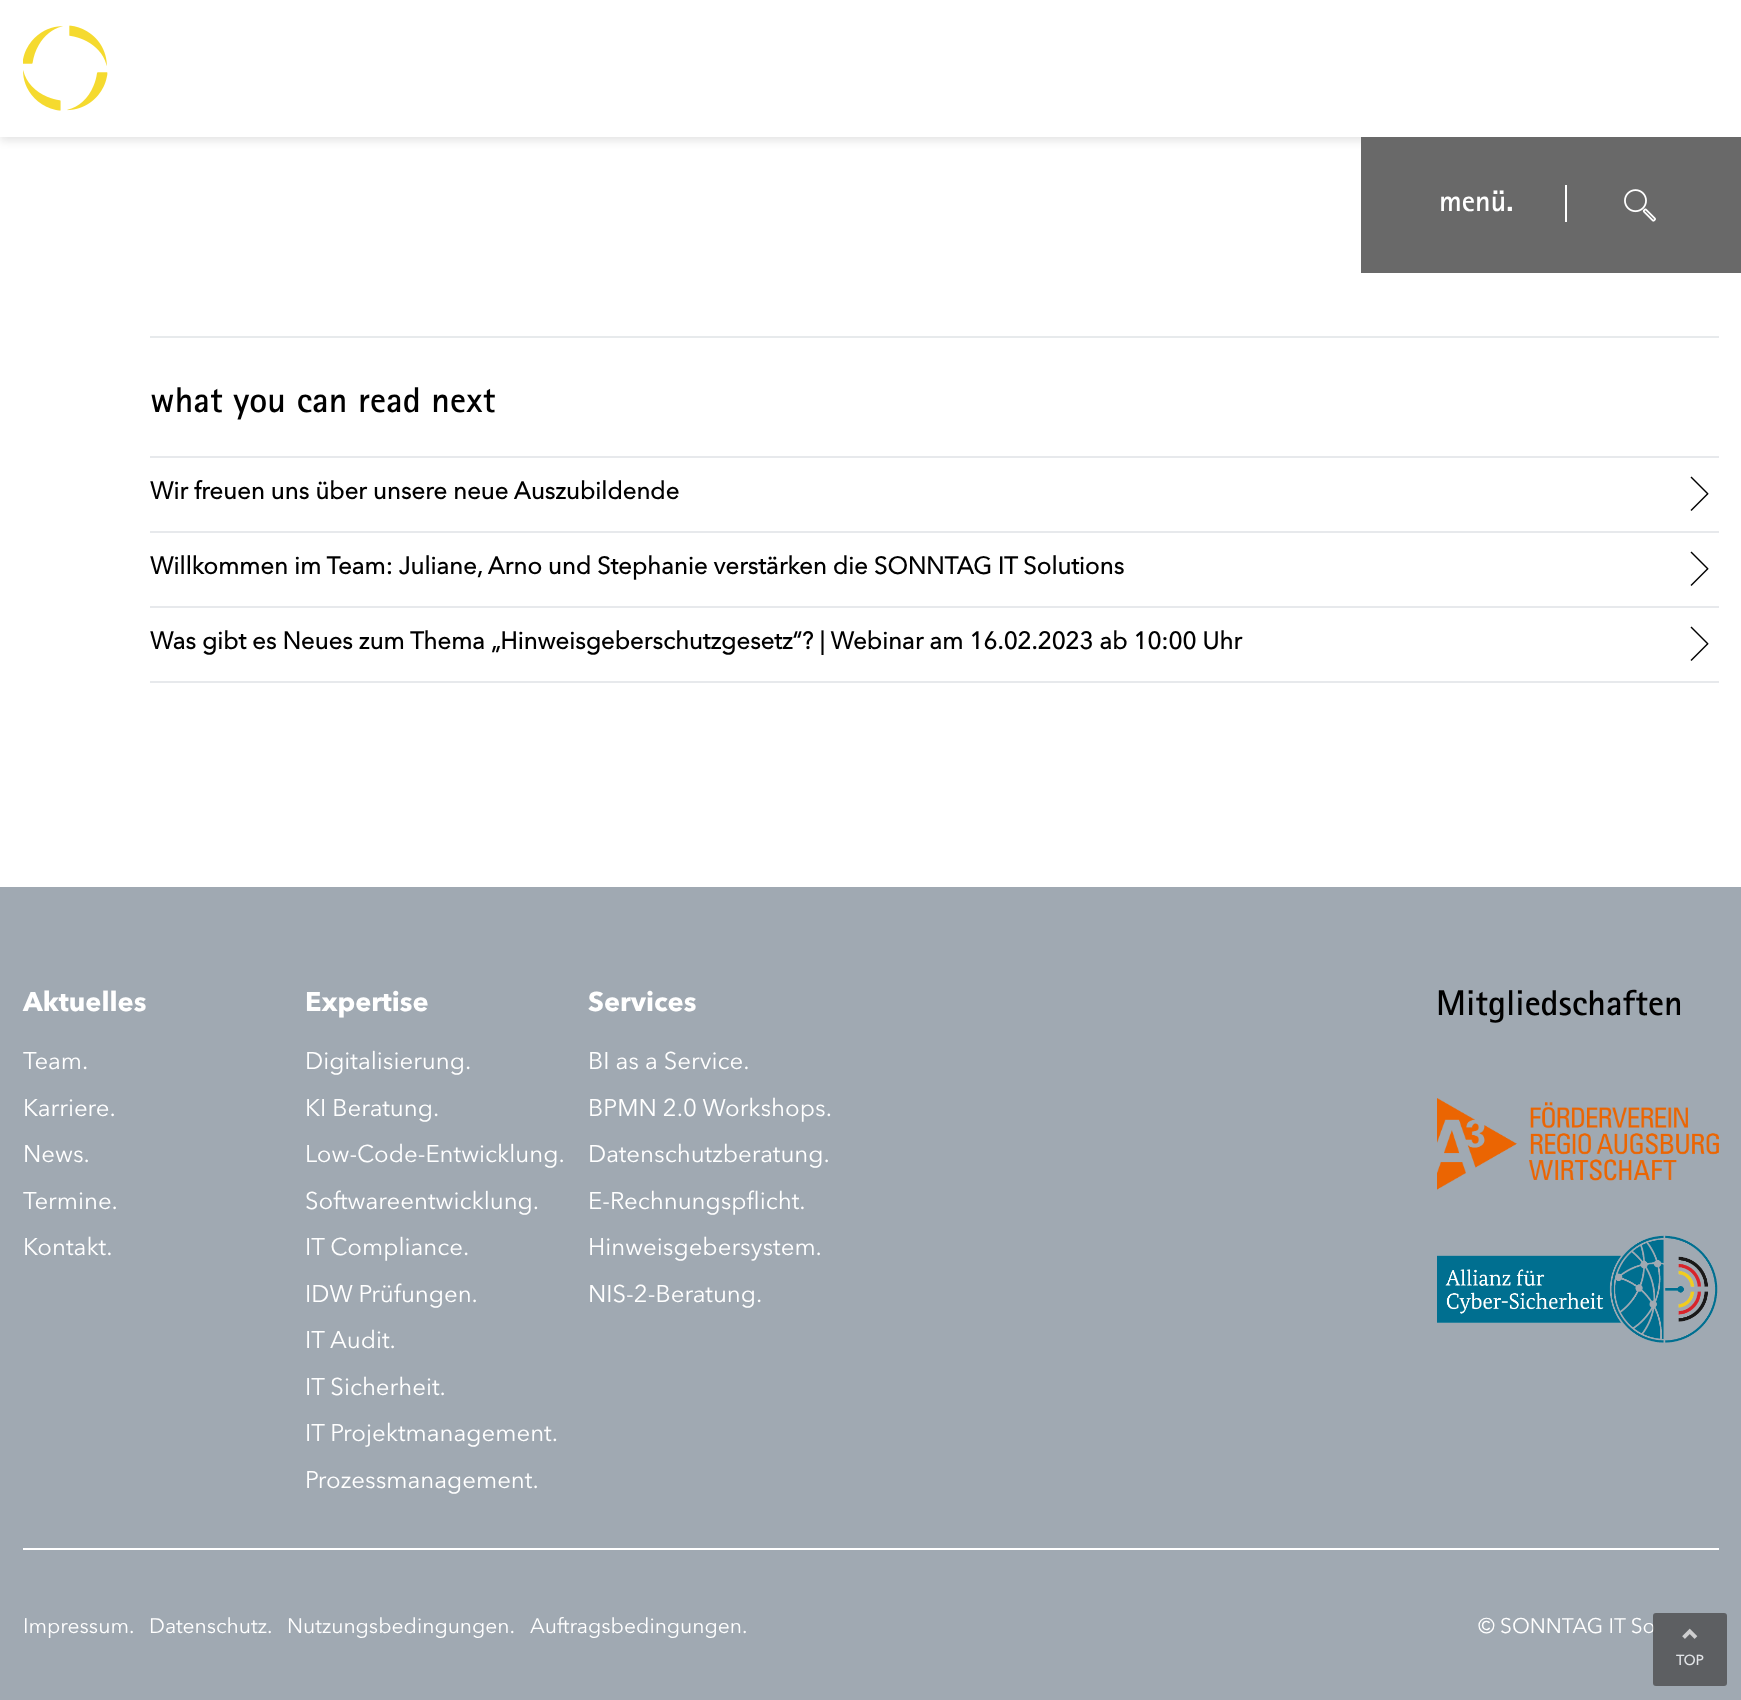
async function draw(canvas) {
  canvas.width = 1741;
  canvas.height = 1700;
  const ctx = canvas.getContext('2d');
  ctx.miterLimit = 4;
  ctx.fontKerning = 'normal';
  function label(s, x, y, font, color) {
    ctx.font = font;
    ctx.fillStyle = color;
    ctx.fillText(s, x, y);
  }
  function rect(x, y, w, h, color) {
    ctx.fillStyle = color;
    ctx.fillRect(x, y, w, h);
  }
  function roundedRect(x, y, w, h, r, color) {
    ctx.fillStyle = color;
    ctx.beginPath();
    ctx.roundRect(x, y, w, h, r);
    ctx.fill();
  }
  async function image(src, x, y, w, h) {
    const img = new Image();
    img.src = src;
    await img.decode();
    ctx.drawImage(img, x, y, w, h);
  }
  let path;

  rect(0, 0, 1741, 1700, '#fff');
  ctx.fillStyle = '#0000001a';
  ctx.filter = 'blur(4px)';
  ctx.beginPath();
  ctx.rect(0, 5, 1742, 136);
  ctx.fill();
  ctx.filter = 'none';
  rect(0, 0, 1741, 137, '#fff');
  await image('assets/img1.png', 23, 25, 85, 86);
  rect(1361, 137, 380, 136, '#696969');
  label('menü.', 1439, 211, 'bold 30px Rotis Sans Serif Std', '#fff');
  rect(1565, 185, 2, 37, '#fff');
  await image('assets/img2.png', 1624, 189, 32, 33);
  rect(150, 336, 1569, 2, '#e7eaec');
  label('what you can read next', 150, 412, 'bold 36px Rotis Sans Serif Std', '#000');
  rect(150, 456, 1569, 2, '#e7e9ec');
  rect(150, 531, 1569, 2, '#e7e9ec');
  label('Wir freuen uns über unsere neue Auszubildende', 150, 499, 'bold 24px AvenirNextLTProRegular', '#000');
  path = new Path2D('M1691.5 476.5L1708.5 493.5L1707.5 494.5L1690.5 477.5Z');
  ctx.fill(path);
  path = new Path2D('M1690.5 510L1707.5 493L1708.5 494L1691.5 511Z');
  ctx.fill(path);
  rect(150, 606, 1569, 2, '#e7e9ec');
  label('Willkommen im Team: Juliane, Arno und Stephanie verstärken die SONNTAG IT Solutions', 150, 574, 'bold 24px AvenirNextLTProRegular', '#000');
  path = new Path2D('M1691.5 551.5L1708.5 568.5L1707.5 569.5L1690.5 552.5Z');
  ctx.fill(path);
  path = new Path2D('M1690.5 585L1707.5 568L1708.5 569L1691.5 586Z');
  ctx.fill(path);
  rect(150, 681, 1569, 2, '#e7e9ec');
  label('Was gibt es Neues zum Thema „Hinweisgeberschutzgesetz“? | Webinar am 16.02.2023 ab 10:00 Uhr', 150, 649, 'bold 24px AvenirNextLTProRegular', '#000');
  path = new Path2D('M1691.5 626.5L1708.5 643.5L1707.5 644.5L1690.5 627.5Z');
  ctx.fill(path);
  path = new Path2D('M1690.5 660L1707.5 643L1708.5 644L1691.5 661Z');
  ctx.fill(path);
  rect(0, 887, 1741, 813, '#a0a9b2');
  label('Aktuelles', 23, 1011, 'bold 27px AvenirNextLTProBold', '#fff');
  label('Team.', 23, 1069, '24px AvenirNextLTProRegular', '#fff');
  label('Karriere.', 23, 1116, '24px AvenirNextLTProRegular', '#fff');
  label('News.', 23, 1162, '24px AvenirNextLTProRegular', '#fff');
  label('Termine.', 23, 1209, '24px AvenirNextLTProRegular', '#fff');
  label('Kontakt.', 23, 1255, '24px AvenirNextLTProRegular', '#fff');
  label('Expertise', 305, 1011, 'bold 27px AvenirNextLTProBold', '#fff');
  label('Digitalisierung.', 305, 1069, '24px AvenirNextLTProRegular', '#fff');
  label('KI Beratung.', 305, 1116, '24px AvenirNextLTProRegular', '#fff');
  label('Low-Code-Entwicklung.', 305, 1162, '24px AvenirNextLTProRegular', '#fff');
  label('Softwareentwicklung.', 305, 1209, '24px AvenirNextLTProRegular', '#fff');
  label('IT Compliance.', 305, 1255, '24px AvenirNextLTProRegular', '#fff');
  label('IDW Prüfungen.', 305, 1302, '24px AvenirNextLTProRegular', '#fff');
  label('IT Audit.', 305, 1348, '24px AvenirNextLTProRegular', '#fff');
  label('IT Sicherheit.', 305, 1395, '24px AvenirNextLTProRegular', '#fff');
  label('IT Projektmanagement.', 305, 1441, '24px AvenirNextLTProRegular', '#fff');
  label('Prozessmanagement.', 305, 1488, '24px AvenirNextLTProRegular', '#fff');
  label('Services', 588, 1011, 'bold 27px AvenirNextLTProBold', '#fff');
  label('BI as a Service.', 588, 1069, '24px AvenirNextLTProRegular', '#fff');
  label('BPMN 2.0 Workshops.', 588, 1116, '24px AvenirNextLTProRegular', '#fff');
  label('Datenschutzberatung.', 588, 1162, '24px AvenirNextLTProRegular', '#fff');
  label('E-Rechnungspflicht.', 588, 1209, '24px AvenirNextLTProRegular', '#fff');
  label('Hinweisgebersystem.', 588, 1255, '24px AvenirNextLTProRegular', '#fff');
  label('NIS-2-Beratung.', 588, 1302, '24px AvenirNextLTProRegular', '#fff');
  label('Mitgliedschaften', 1436, 1015, 'bold 36px Rotis Sans Serif Std', '#000');
  await image('assets/img3.png', 1437, 1098, 282, 92);
  await image('assets/img4.png', 1437, 1235, 281, 108);
  rect(23, 1548, 1696, 2, '#fff');
  label('Impressum.', 23, 1633, '21px AvenirNextLTProRegular', '#fff');
  label('Datenschutz.', 149, 1633, '21px AvenirNextLTProRegular', '#fff');
  label('Nutzungsbedingungen.', 287, 1633, '21px AvenirNextLTProRegular', '#fff');
  label('Auftragsbedingungen.', 530, 1633, '21px AvenirNextLTProRegular', '#fff');
  label('© SONNTAG IT So', 1478, 1633, '21px AvenirNextLTProRegular', '#fff');
  roundedRect(1653, 1613, 74, 73, 3, '#404040b3');
  await image('assets/img5.png', 1682, 1628, 16, 11);
  label('TOP', 1676, 1665, 'bold 14px AvenirNextLTProRegular', '#e3e5e8');
}

draw(document.querySelector('canvas'));
